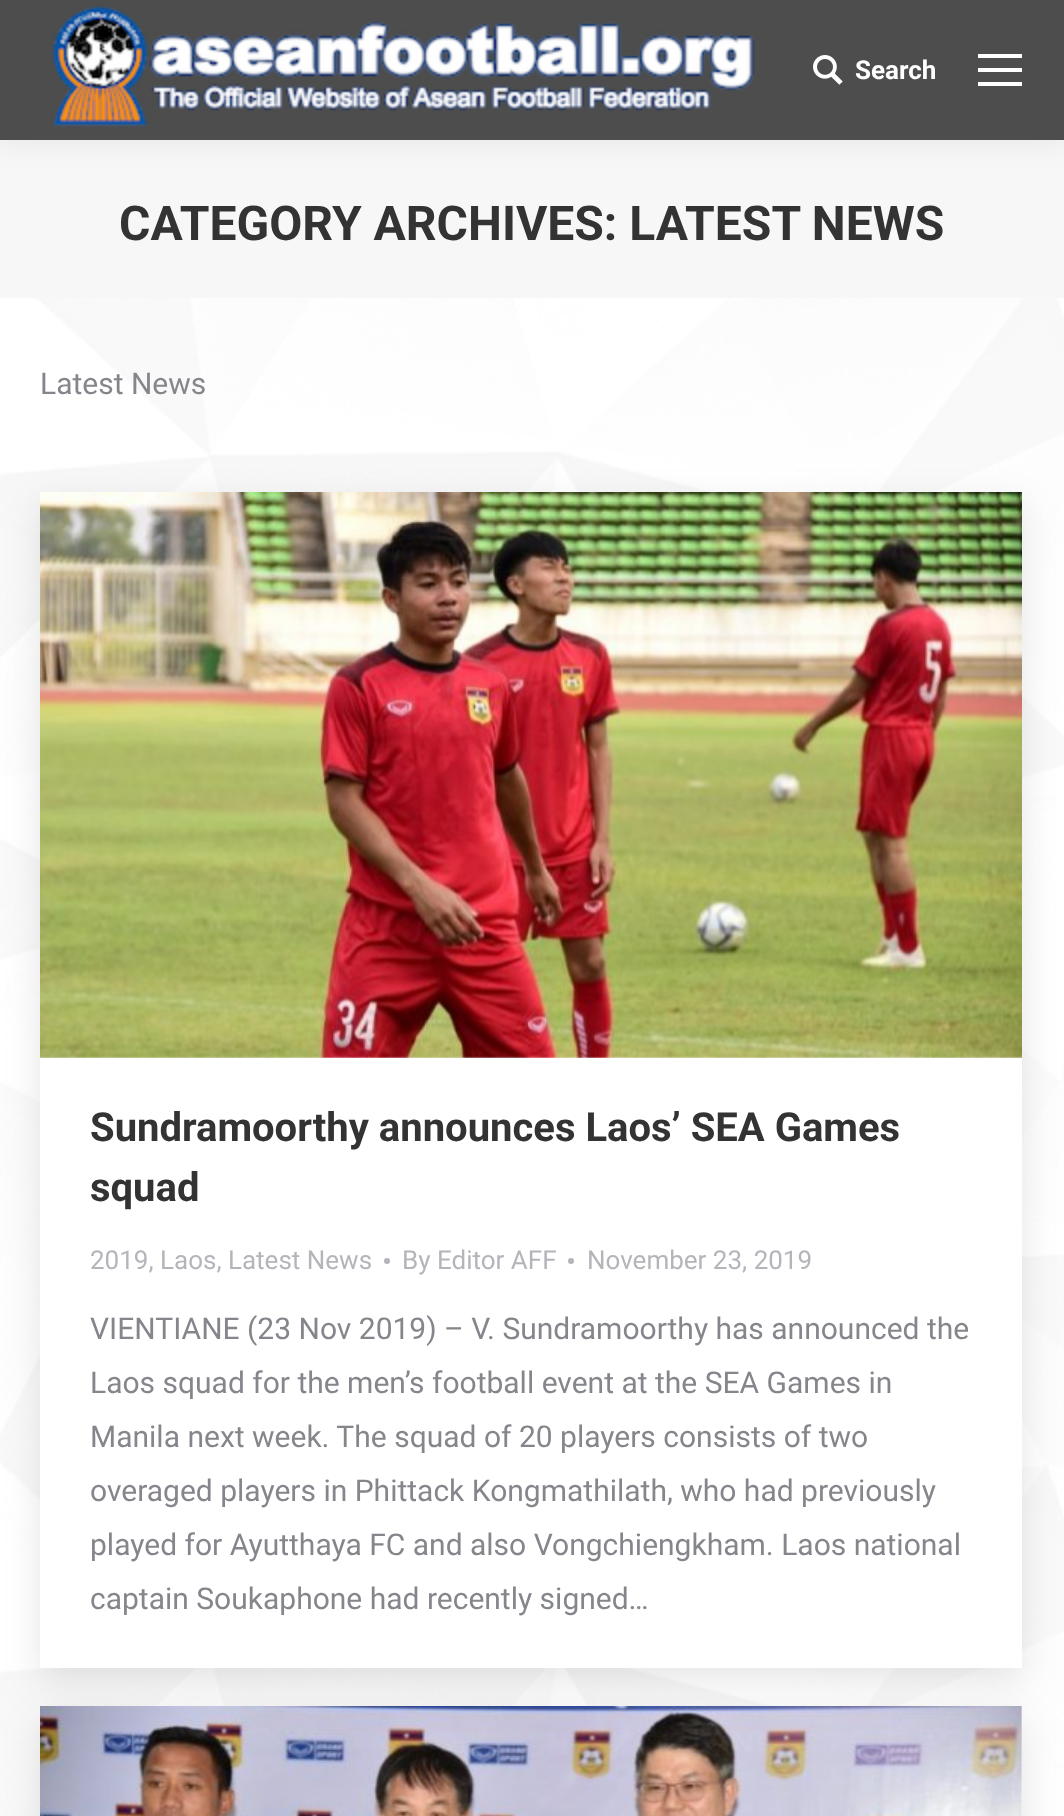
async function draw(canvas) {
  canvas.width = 1064;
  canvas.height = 1816;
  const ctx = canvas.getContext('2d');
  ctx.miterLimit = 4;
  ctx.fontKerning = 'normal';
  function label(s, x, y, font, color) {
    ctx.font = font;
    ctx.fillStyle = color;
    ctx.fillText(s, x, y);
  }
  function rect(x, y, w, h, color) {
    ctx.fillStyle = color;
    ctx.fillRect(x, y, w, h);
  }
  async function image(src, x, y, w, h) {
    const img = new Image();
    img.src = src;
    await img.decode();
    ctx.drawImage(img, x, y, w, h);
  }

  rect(0, 0, 1064, 1816, '#fff');
  await image('assets/img1.png', 0, 298, 1064, 1518);
  rect(0, 140, 1064, 158, '#f7f7f7');
  ctx.fillStyle = '#00000012';
  ctx.filter = 'blur(15px)';
  ctx.beginPath();
  ctx.rect(-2, -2, 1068, 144);
  ctx.fill();
  ctx.filter = 'none';
  rect(0, 0, 1064, 140, '#4d4d4d');
  await image('assets/img2.png', 51, 5, 704, 122);
  await image('assets/img3.png', 813, 55, 30, 30);
  label('Search', 855, 79, 'bold 26px Roboto', '#fff');
  rect(978, 68, 44, 4, '#fff');
  rect(978, 54, 44, 4, '#fff');
  rect(978, 82, 44, 4, '#fff');
  label('CATEGORY ARCHIVES: LATEST NEWS', 119, 240, 'bold 48px Roboto', '#333');
  label('Latest News', 40, 394, '30px Roboto', '#85868c');
  ctx.fillStyle = '#0000001a';
  ctx.filter = 'blur(18px)';
  ctx.beginPath();
  ctx.rect(40, 504, 982, 1176);
  ctx.fill();
  ctx.filter = 'none';
  rect(40, 1056, 982, 612, '#fff');
  await image('assets/img4.png', 40, 492, 982, 566);
  label('Sundramoorthy announces Laos’ SEA Games', 90, 1141, 'bold 40px Roboto', '#333');
  label('squad', 90, 1201, 'bold 40px Roboto', '#333');
  label('2019, Laos, Latest News', 90, 1269, '26px Roboto', '#b4b5bb');
  ctx.beginPath();
  ctx.arc(387, 1261, 3, 0, 2 * Math.PI);
  ctx.fill();
  label('By Editor AFF', 402, 1269, '26px Roboto', '#b4b5bb');
  ctx.beginPath();
  ctx.arc(571, 1261, 3, 0, 2 * Math.PI);
  ctx.fill();
  label('November 23, 2019', 587, 1269, '26px Roboto', '#b4b5bb');
  label('VIENTIANE (23 Nov 2019) – V. Sundramoorthy has announced the', 90, 1339, '30px Roboto', '#85868c');
  label('Laos squad for the men’s football event at the SEA Games in', 90, 1393, '30px Roboto', '#85868c');
  label('Manila next week. The squad of 20 players consists of two', 90, 1447, '30px Roboto', '#85868c');
  label('overaged players in Phittack Kongmathilath, who had previously', 90, 1501, '30px Roboto', '#85868c');
  label('played for Ayutthaya FC and also Vongchiengkham. Laos national', 90, 1555, '30px Roboto', '#85868c');
  label('captain Soukaphone had recently signed…', 90, 1609, '30px Roboto', '#85868c');
  ctx.fillStyle = '#0000001a';
  ctx.filter = 'blur(18px)';
  ctx.beginPath();
  ctx.rect(40, 1718, 982, 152);
  ctx.fill();
  ctx.filter = 'none';
  rect(1021, 1706, 1, 110, '#fff');
  await image('assets/img5.png', 40, 1706, 982, 110);
}

draw(document.querySelector('canvas'));
